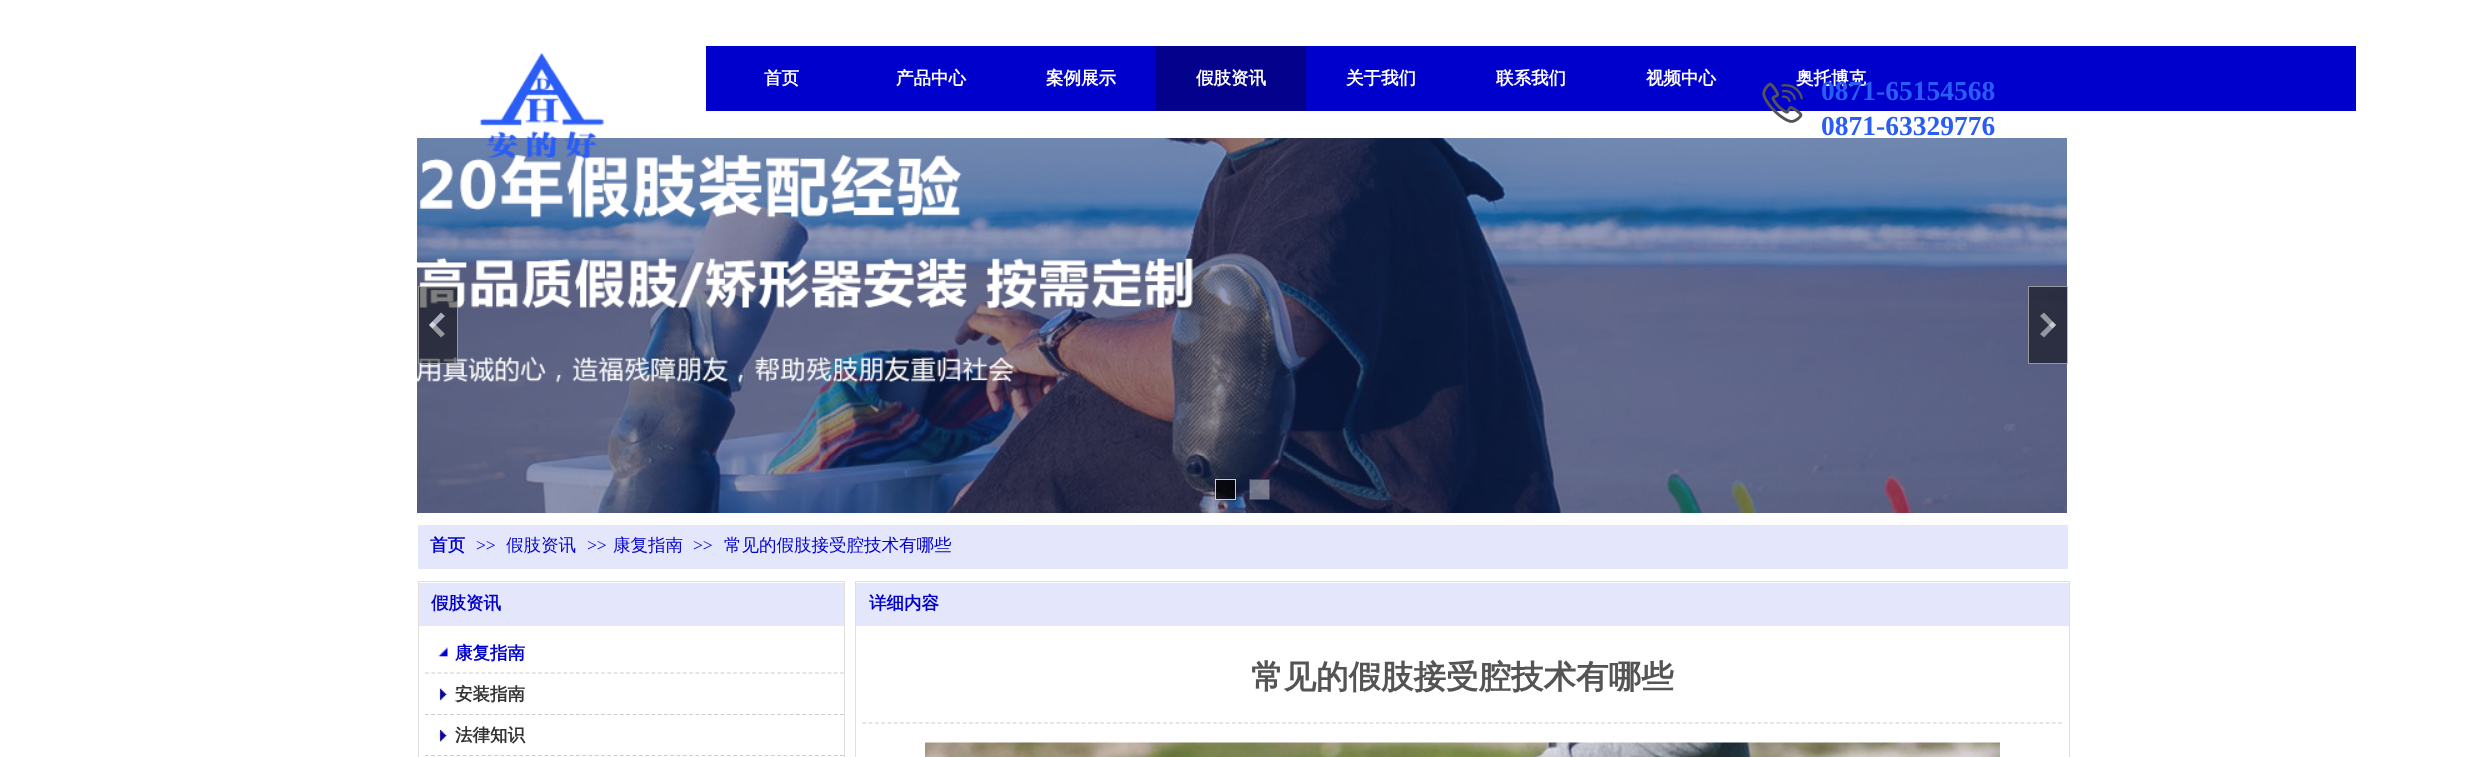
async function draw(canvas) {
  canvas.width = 2484;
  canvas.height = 757;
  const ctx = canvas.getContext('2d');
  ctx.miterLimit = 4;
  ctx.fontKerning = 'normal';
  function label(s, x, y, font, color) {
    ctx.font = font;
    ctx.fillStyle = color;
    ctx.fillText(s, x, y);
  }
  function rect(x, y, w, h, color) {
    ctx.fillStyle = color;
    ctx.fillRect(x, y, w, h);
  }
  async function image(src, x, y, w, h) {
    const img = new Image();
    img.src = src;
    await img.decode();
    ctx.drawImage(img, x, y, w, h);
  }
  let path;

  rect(0, 0, 2484, 757, '#fff');
  rect(706, 46, 1650, 65, '#00c');
  label('首页', 764, 84, 'bold 17.5px WenQuanYi Zen Hei', '#fff');
  label('产品中心', 896, 84, 'bold 17.5px WenQuanYi Zen Hei', '#fff');
  label('案例展示', 1046, 84, 'bold 17.5px WenQuanYi Zen Hei', '#fff');
  rect(1156, 46, 150, 65, '#04018c');
  label('假肢资讯', 1196, 84, 'bold 17.5px WenQuanYi Zen Hei', '#fff');
  label('关于我们', 1346, 84, 'bold 17.5px WenQuanYi Zen Hei', '#fff');
  label('联系我们', 1496, 84, 'bold 17.5px WenQuanYi Zen Hei', '#fff');
  label('视频中心', 1646, 84, 'bold 17.5px WenQuanYi Zen Hei', '#fff');
  label('奥托博克', 1796, 84, 'bold 17.5px WenQuanYi Zen Hei', '#fff');
  await image('assets/img1.png', 417, 138, 1650, 375);
  rect(418, 286, 40, 78, '#00000080');
  ctx.strokeStyle = '#ffffff80';
  ctx.strokeRect(418.5, 286.5, 39, 77);
  ctx.fillStyle = '#abaebf';
  path = new Path2D('M429 325L441 312.5L445 316L432.5 328.5Z');
  ctx.fill(path);
  ctx.fillStyle = '#ffffff80';
  path = new Path2D('M429 325L432.5 321.5L445 334L441 337.5Z');
  ctx.fill(path);
  rect(2028, 286, 40, 78, '#00000080');
  ctx.strokeRect(2028.5, 286.5, 39, 77);
  ctx.fillStyle = '#9597a0';
  path = new Path2D('M2056 325L2044 337.5L2040 334L2052.5 321.5Z');
  ctx.fill(path);
  ctx.fillStyle = '#ffffff80';
  path = new Path2D('M2056 325L2052.5 328.5L2040 316L2044 312.5Z');
  ctx.fill(path);
  ctx.save();
  path = new Path2D('M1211 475H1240V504H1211ZM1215 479H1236V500H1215Z');
  ctx.clip(path, 'evenodd');
  ctx.fillStyle = '#0000007a';
  ctx.filter = 'blur(1px)';
  ctx.beginPath();
  ctx.rect(1215, 479, 21, 21);
  ctx.fill();
  ctx.filter = 'none';
  ctx.restore();
  rect(1215, 479, 21, 21, '#000000cc');
  ctx.strokeStyle = '#ffffffcc';
  ctx.strokeRect(1215.5, 479.5, 20, 20);
  rect(1249, 479, 21, 21, '#ffffff66');
  ctx.strokeStyle = '#00000066';
  ctx.strokeRect(1249.5, 479.5, 20, 20);
  await image('assets/img2.png', 479, 52, 125, 107);
  await image('assets/img3.png', 1762, 82, 41, 41);
  label('0871-65154568', 1821, 100, 'bold 27.5px Liberation Serif', '#2a5cf6');
  label('0871-63329776', 1821, 135, 'bold 27.5px Liberation Serif', '#2a5cf6');
  rect(418, 525, 1650, 44, '#e4e6fb');
  label('首页', 430, 551, 'bold 17.5px WenQuanYi Zen Hei', '#0001cc');
  label('>>', 476, 551, '17.5px Liberation Serif', '#0001cc');
  label('假肢资讯', 506, 551, '500 17.5px WenQuanYi Zen Hei', '#0001cc');
  label('>>', 587, 551, '17.5px Liberation Serif', '#0001cc');
  label('康复指南', 613, 551, '500 17.5px WenQuanYi Zen Hei', '#0001cc');
  label('>>', 693, 551, '17.5px Liberation Serif', '#0001cc');
  label('常见的假肢接受腔技术有哪些', 724, 551, '500 17.5px WenQuanYi Zen Hei', '#0001cc');
  ctx.strokeStyle = '#e0dfdd';
  ctx.strokeRect(418.5, 581.5, 426, 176);
  rect(419, 583, 425, 43, '#e4e6fb');
  label('假肢资讯', 431, 609, 'bold 17.5px WenQuanYi Zen Hei', '#0001cc');
  ctx.save();
  ctx.beginPath();
  ctx.rect(425, 633, 419, 41);
  ctx.clip();
  path = new Path2D('M425 673H850');
  ctx.strokeStyle = '#ccc';
  ctx.lineWidth = 1.2;
  ctx.setLineDash([3.75, 2.54]);
  ctx.stroke(path);
  ctx.restore();
  await image('assets/img4.png', 438, 647, 10, 10);
  label('康复指南', 455, 659, 'bold 17.5px WenQuanYi Zen Hei', '#0001cc');
  ctx.save();
  ctx.beginPath();
  ctx.rect(425, 674, 419, 41);
  ctx.clip();
  path = new Path2D('M425 714.5H850');
  ctx.strokeStyle = '#ccc';
  ctx.lineWidth = 1.2;
  ctx.setLineDash([3.75, 2.54]);
  ctx.stroke(path);
  ctx.restore();
  await image('assets/img5.png', 439, 688, 8, 13);
  label('安装指南', 455, 700, 'bold 17.5px WenQuanYi Zen Hei', '#333');
  ctx.save();
  ctx.beginPath();
  ctx.rect(425, 715, 419, 41);
  ctx.clip();
  path = new Path2D('M425 755.5H850');
  ctx.strokeStyle = '#ccc';
  ctx.lineWidth = 1.2;
  ctx.setLineDash([3.75, 2.54]);
  ctx.stroke(path);
  ctx.restore();
  await image('assets/img6.png', 439, 730, 8, 12);
  label('法律知识', 455, 741, 'bold 17.5px WenQuanYi Zen Hei', '#333');
  ctx.strokeRect(855.5, 581.5, 1214, 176);
  rect(856, 583, 1213, 43, '#e4e6fb');
  label('详细内容', 869, 609, 'bold 17.5px WenQuanYi Zen Hei', '#0001cc');
  path = new Path2D('M862.5 723H2062.5');
  ctx.strokeStyle = '#ccc';
  ctx.lineWidth = 1.2;
  ctx.setLineDash([3.75, 2.51]);
  ctx.stroke(path);
  label('常见的假肢接受腔技术有哪些', 1251, 688, 'bold 32.5px WenQuanYi Zen Hei', '#545454');
  await image('assets/img7.png', 925, 742, 1075, 15);
}

draw(document.querySelector('canvas'));
